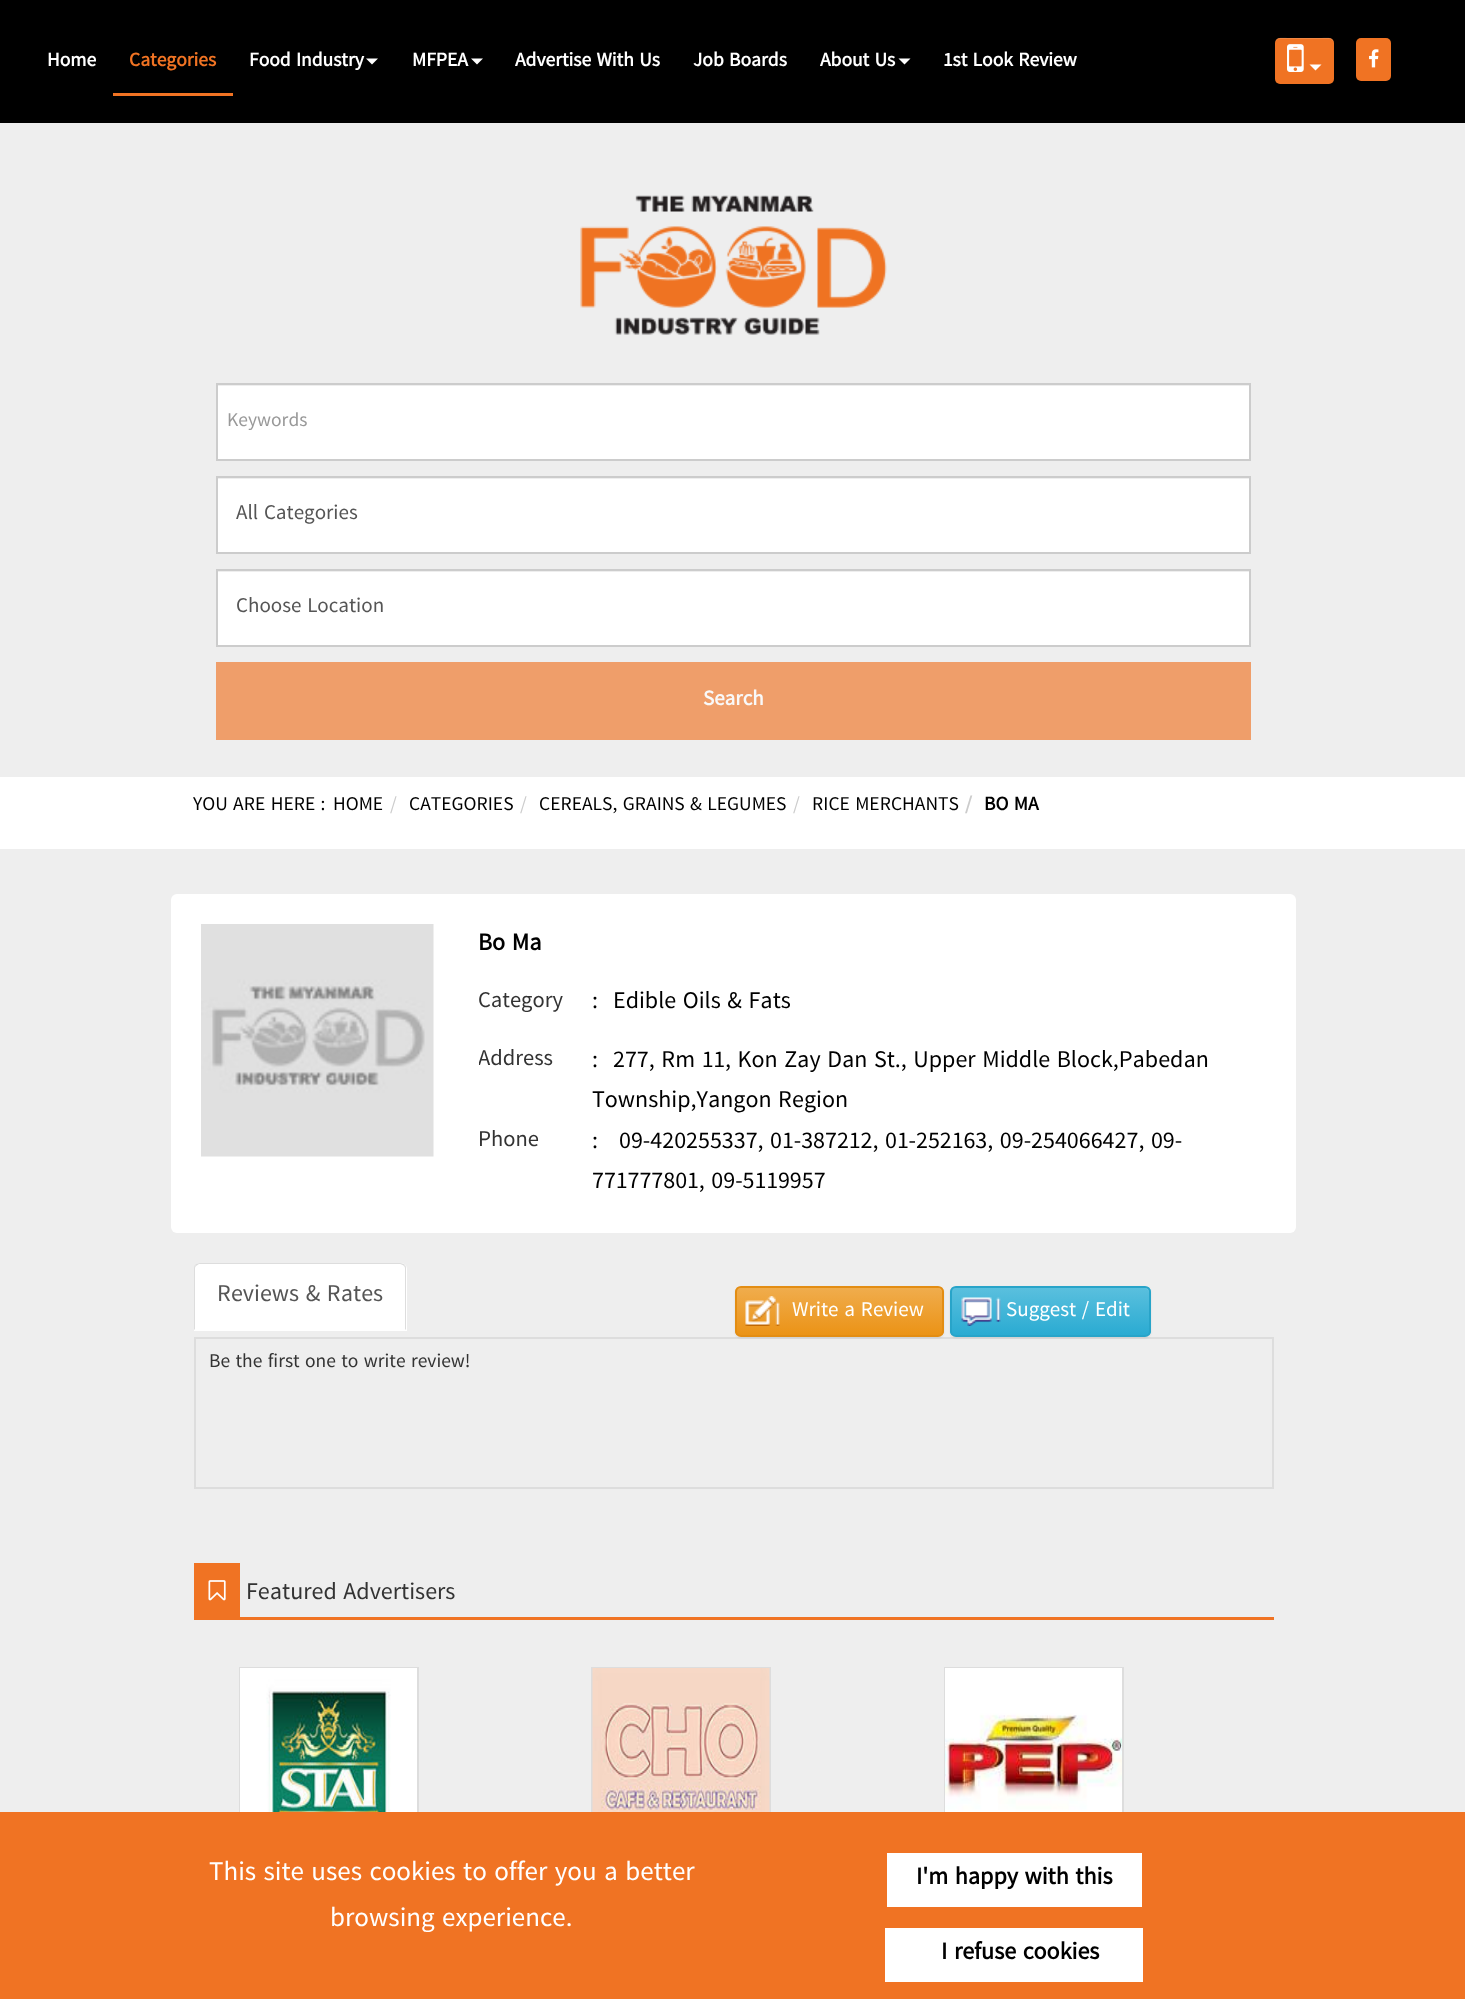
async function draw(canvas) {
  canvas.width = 1465;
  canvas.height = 1999;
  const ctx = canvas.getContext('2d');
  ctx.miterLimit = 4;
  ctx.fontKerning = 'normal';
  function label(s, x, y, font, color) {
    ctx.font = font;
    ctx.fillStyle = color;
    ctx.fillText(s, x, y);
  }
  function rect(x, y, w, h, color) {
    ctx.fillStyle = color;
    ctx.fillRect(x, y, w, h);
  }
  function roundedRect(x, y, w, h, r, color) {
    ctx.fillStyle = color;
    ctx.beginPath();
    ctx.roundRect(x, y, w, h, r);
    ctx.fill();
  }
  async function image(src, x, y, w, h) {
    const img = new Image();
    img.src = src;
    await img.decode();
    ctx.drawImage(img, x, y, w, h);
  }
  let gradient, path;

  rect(0, 0, 1465, 1999, '#eee');
  rect(0, 0, 1465, 123, '#000');
  label('Home', 47, 66, 'bold 19.5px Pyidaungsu', '#fff');
  rect(113, 93, 120, 3, '#f07323');
  label('Categories', 129, 66, 'bold 19.5px Pyidaungsu', '#f07323');
  label('Food Industry', 249, 66, 'bold 19.5px Pyidaungsu', '#fff');
  path = new Path2D('M366 58.5H378L372 64.5Z');
  ctx.fill(path);
  label('MFPEA', 412, 66, 'bold 19.5px Pyidaungsu', '#fff');
  path = new Path2D('M471 58.5H483L477 64.5Z');
  ctx.fill(path);
  label('Advertise With Us', 515, 66, 'bold 19.5px Pyidaungsu', '#fff');
  label('Job Boards', 693, 66, 'bold 19.5px Pyidaungsu', '#fff');
  label('About Us', 820, 66, 'bold 19.5px Pyidaungsu', '#fff');
  path = new Path2D('M898.5 58.5H910.5L904.5 64.5Z');
  ctx.fill(path);
  label('1st Look Review', 943, 66, 'bold 19.5px Pyidaungsu', '#fff');
  roundedRect(1275, 38, 59, 46, 5, '#f07323');
  ctx.fillStyle = '#ffffff26';
  path = new Path2D('M1280 39H1329C1331 39 1334 41 1334 44C1334 36 1327 38 1321 38H1288C1282 38 1275 36 1275 44C1275 41 1277 39 1280 39Z');
  ctx.fill(path);
  await image('assets/img1.png', 1287, 44, 17, 28);
  ctx.fillStyle = '#fff';
  path = new Path2D('M1309.5 64.5H1321.5L1315.5 70.5Z');
  ctx.fill(path);
  roundedRect(1356, 38, 35, 43, 5, '#f07323');
  await image('assets/img2.png', 1369, 49, 10, 19);
  await image('assets/img3.png', 580, 195, 307, 140);
  rect(218, 386, 1031, 73, '#fff');
  ctx.strokeStyle = '#ccc';
  ctx.lineWidth = 2;
  ctx.strokeRect(217, 384, 1033, 76);
  label('Keywords', 227, 426, '19.5px Pyidaungsu', '#999');
  rect(218, 479, 1031, 73, '#fff');
  ctx.strokeRect(217, 477, 1033, 76);
  label('All Categories', 236, 519, '21px Pyidaungsu', '#555');
  rect(218, 572, 1031, 73, '#fff');
  ctx.strokeRect(217, 570, 1033, 76);
  label('Choose Location', 236, 612, '21px Pyidaungsu', '#555');
  rect(216, 662, 1035, 78, '#ef9e6a');
  label('Search', 703, 705, 'bold 21px Pyidaungsu', '#f9f9f9');
  rect(0, 777, 1465, 72, '#fff');
  label('YOU ARE HERE :', 193, 810, '19.5px Pyidaungsu', '#000');
  label('HOME', 333, 810, '19.5px Pyidaungsu', '#000');
  label('/', 390, 810, '19.5px Pyidaungsu', '#ccc');
  label('CATEGORIES', 409, 810, '19.5px Pyidaungsu', '#000');
  label('/', 520, 810, '19.5px Pyidaungsu', '#ccc');
  label('CEREALS, GRAINS & LEGUMES', 539, 810, '19.5px Pyidaungsu', '#000');
  label('/', 793, 810, '19.5px Pyidaungsu', '#ccc');
  label('RICE MERCHANTS', 812, 810, '19.5px Pyidaungsu', '#000');
  label('/', 965, 810, 'bold 19.5px Pyidaungsu', '#ccc');
  label('BO MA', 984, 810, 'bold 19.5px Pyidaungsu', '#000');
  roundedRect(171, 894, 1125, 339, 6, '#fff');
  await image('assets/img4.png', 201, 924, 233, 233);
  label('Bo Ma', 478, 950, 'bold 24px Pyidaungsu', '#000');
  label('Category', 478, 1007, '22.5px Pyidaungsu', '#333');
  label(':', 592, 1008, '24px Pyidaungsu', '#000');
  label('Edible Oils & Fats', 613, 1008, '24px Pyidaungsu', '#000');
  ctx.save();
  ctx.beginPath();
  ctx.rect(479, 1041, 105, 39);
  ctx.clip();
  label('Address', 478, 1065, '22.5px Pyidaungsu', '#333');
  ctx.restore();
  label(':', 592, 1067, '24px Pyidaungsu', '#000');
  label('277, Rm 11, Kon Zay Dan St., Upper Middle Block,Pabedan', 613, 1067, '24px Pyidaungsu', '#000');
  label('Township,Yangon Region', 592, 1107, '24px Pyidaungsu', '#000');
  label('Phone', 478, 1146, '22.5px Pyidaungsu', '#333');
  label(':', 592, 1148, '24px Pyidaungsu', '#000');
  label('09-420255337, 01-387212, 01-252163, 09-254066427, 09-', 619, 1148, '24px Pyidaungsu', '#000');
  label('771777801, 09-5119957', 592, 1188, '24px Pyidaungsu', '#000');
  rect(194, 1337, 1080, 2, '#ddd');
  ctx.fillStyle = '#fff';
  ctx.beginPath();
  ctx.roundRect(194, 1263, 213, 68, [6, 6, 0, 0]);
  ctx.fill();
  ctx.fillStyle = '#ddd';
  path = new Path2D('M200 1263C198 1263 196 1264 195 1265L196 1266L199 1264H400C401 1264 403 1265 404 1266L405 1265C404 1264 402 1263 400 1263Z');
  ctx.fill(path);
  path = new Path2D('M405 1265C406 1266 406 1268 406 1269V1330L405 1329V1269C405 1268 405 1267 404 1266Z');
  ctx.fill(path);
  path = new Path2D('M195 1265C194 1266 194 1268 194 1269V1330L195 1329V1269C195 1268 195 1267 196 1266Z');
  ctx.fill(path);
  label('Reviews & Rates', 217, 1301, '24px Pyidaungsu', '#555');
  rect(1272, 1338, 2, 150, '#ddd');
  rect(194, 1487, 1080, 2, '#ddd');
  rect(194, 1338, 2, 150, '#ddd');
  label('Be the first one to write review!', 209, 1367, '19.5px Pyidaungsu', '#333');
  ctx.fillStyle = '#00000012';
  ctx.filter = 'blur(1px)';
  ctx.beginPath();
  ctx.roundRect(735, 1287, 209, 51, 6);
  ctx.fill();
  ctx.filter = 'none';
  ctx.save();
  ctx.beginPath();
  ctx.roundRect(735, 1286, 209, 51, 6);
  ctx.clip();
  gradient = ctx.createLinearGradient(839, 1287, 839, 1335);
  gradient.addColorStop(0, '#f0ad4e');
  gradient.addColorStop(1, '#eb9316');
  ctx.fillStyle = gradient;
  ctx.fillRect(735, 1287, 209, 48);
  ctx.restore();
  ctx.fillStyle = '#ffffff26';
  path = new Path2D('M741 1288H938C940 1288 942 1291 942 1293V1292C942 1289 940 1287 937 1287H742C740 1287 738 1288 737 1290C738 1289 740 1288 741 1288Z');
  ctx.fill(path);
  ctx.beginPath();
  ctx.roundRect(736, 1287, 207, 49, 5);
  ctx.strokeStyle = '#e38d13';
  ctx.stroke();
  await image('assets/img5.png', 745, 1296, 35, 30);
  label('Write a Review', 792, 1316, '21px Pyidaungsu', '#fff');
  ctx.fillStyle = '#00000012';
  ctx.filter = 'blur(1px)';
  ctx.beginPath();
  ctx.roundRect(950, 1287, 201, 51, 6);
  ctx.fill();
  ctx.filter = 'none';
  ctx.save();
  ctx.beginPath();
  ctx.roundRect(950, 1286, 201, 51, 6);
  ctx.clip();
  gradient = ctx.createLinearGradient(1050, 1287, 1050, 1335);
  gradient.addColorStop(0, '#5bc0de');
  gradient.addColorStop(1, '#2aabd2');
  ctx.fillStyle = gradient;
  ctx.fillRect(950, 1287, 201, 48);
  ctx.restore();
  ctx.fillStyle = '#ffffff26';
  path = new Path2D('M956 1288H1144C1147 1288 1149 1291 1149 1293V1292C1149 1289 1147 1287 1144 1287H956C953 1287 951 1289 951 1292V1293C951 1291 953 1288 956 1288Z');
  ctx.fill(path);
  ctx.beginPath();
  ctx.roundRect(951, 1287, 199, 49, 5);
  ctx.strokeStyle = '#28a4c9';
  ctx.stroke();
  await image('assets/img6.png', 961, 1297, 40, 29);
  label('Suggest / Edit', 1006, 1316, '21px Pyidaungsu', '#fff');
  rect(194, 1617, 1080, 3, '#f07323');
  rect(194, 1563, 46, 54, '#f07323');
  await image('assets/img7.png', 208, 1580, 18, 21);
  label('Featured Advertisers', 246, 1599, '24px Pyidaungsu', '#333');
  ctx.strokeStyle = '#ddd';
  ctx.strokeRect(240, 1668, 178, 178);
  await image('assets/img8.png', 240, 1668, 177, 144);
  ctx.strokeRect(592, 1668, 178, 178);
  await image('assets/img9.png', 592, 1668, 178, 144);
  ctx.strokeRect(945, 1668, 178, 178);
  await image('assets/img10.png', 945, 1668, 177, 144);
  rect(0, 1812, 1465, 187, '#f07323');
  label('This site uses cookies to offer you a better', 209, 1880, '27px Pyidaungsu', '#fff');
  label('browsing experience.', 330, 1926, '27px Pyidaungsu', '#fff');
  rect(887, 1853, 255, 54, '#fff');
  label('I\'m happy with this', 916, 1884, 'bold 24px Pyidaungsu', '#000');
  rect(885, 1928, 258, 54, '#fff');
  label('I refuse cookies', 941, 1959, 'bold 24px Pyidaungsu', '#000');
}

draw(document.querySelector('canvas'));
